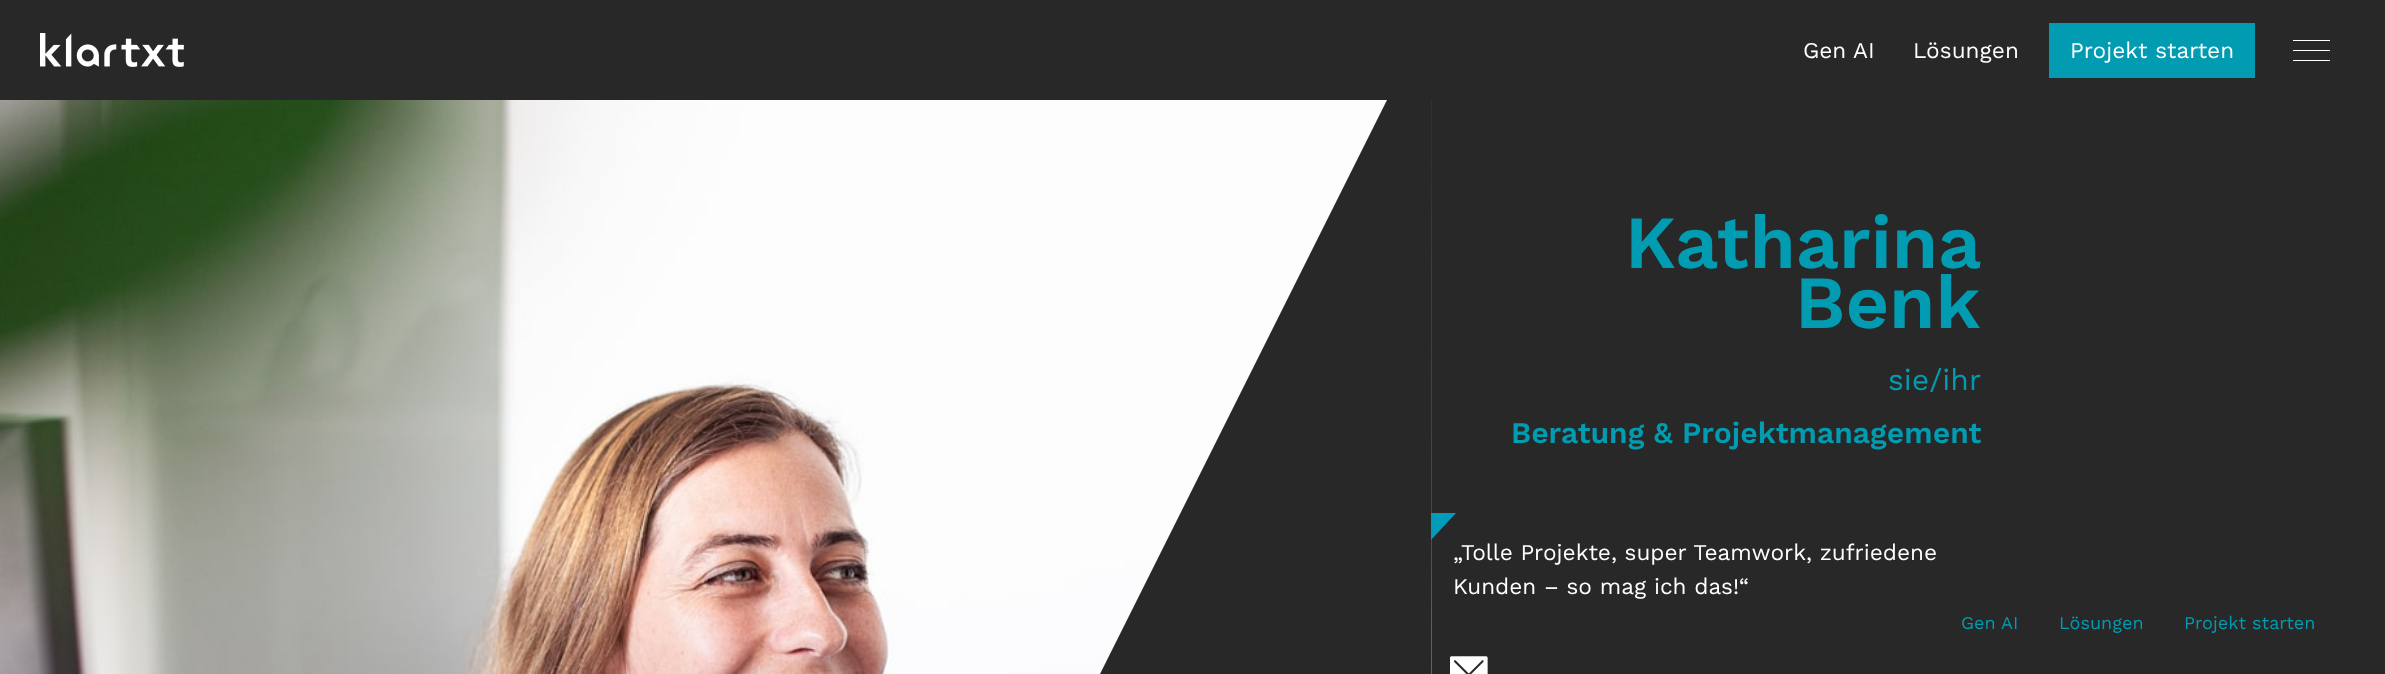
async function draw(canvas) {
  canvas.width = 2385;
  canvas.height = 674;
  const ctx = canvas.getContext('2d');
  ctx.miterLimit = 4;
  ctx.fontKerning = 'normal';
  function label(s, x, y, font, color) {
    ctx.font = font;
    ctx.fillStyle = color;
    ctx.fillText(s, x, y);
  }
  function rect(x, y, w, h, color) {
    ctx.fillStyle = color;
    ctx.fillRect(x, y, w, h);
  }
  async function image(src, x, y, w, h) {
    const img = new Image();
    img.src = src;
    await img.decode();
    ctx.drawImage(img, x, y, w, h);
  }
  let path;

  rect(0, 0, 2385, 674, '#282828');
  await image('assets/img1.png', 40, 33, 144, 34);
  label('Gen AI', 1803, 58, '22.5px Work Sans', '#fff');
  label('Lösungen', 1913, 58, '22.5px Work Sans', '#fff');
  rect(2049, 23, 206, 55, '#019cb2');
  label('Projekt starten', 2070, 58, '22.5px Work Sans', '#fff');
  rect(2293, 50, 37, 1, '#fff');
  rect(2293, 40, 37, 1, '#fff');
  rect(2293, 60, 37, 1, '#fff');
  await image('assets/img2.png', 0, 100, 1387, 574);
  ctx.save();
  ctx.beginPath();
  ctx.rect(0, 0, 1431, 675);
  ctx.clip();
  ctx.fillStyle = '#282828';
  path = new Path2D('M1437 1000V0L938 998V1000Z');
  ctx.fill(path);
  ctx.restore();
  await image('assets/img3.png', 1431, 100, 1, 574);
  label('Katharina', 1625, 268, '600 75px Work Sans', '#019cb2');
  label('Benk', 1795, 328, '600 75px Work Sans', '#019cb2');
  label('sie/ihr', 1888, 390, '30px Work Sans', '#019cb2');
  label('Beratung & Projektmanagement', 1511, 443, '600 30px Work Sans', '#019cb2');
  ctx.save();
  ctx.beginPath();
  ctx.rect(1431, 513, 28, 27);
  ctx.clip();
  ctx.fillStyle = '#009cba';
  path = new Path2D('M1431 540V512.5H1456.5Z');
  ctx.fill(path);
  ctx.restore();
  label('„Tolle Projekte, super Teamwork, zufriedene', 1453, 560, '22.5px Work Sans', '#fff');
  label('Kunden – so mag ich das!“', 1453, 594, '22.5px Work Sans', '#fff');
  await image('assets/img4.png', 1450, 656, 38, 18);
  label('Gen AI', 1961, 629, '18px Work Sans', '#019cb2');
  label('Lösungen', 2059, 629, '18px Work Sans', '#019cb2');
  label('Projekt starten', 2184, 629, '18px Work Sans', '#019cb2');
}

draw(document.querySelector('canvas'));
